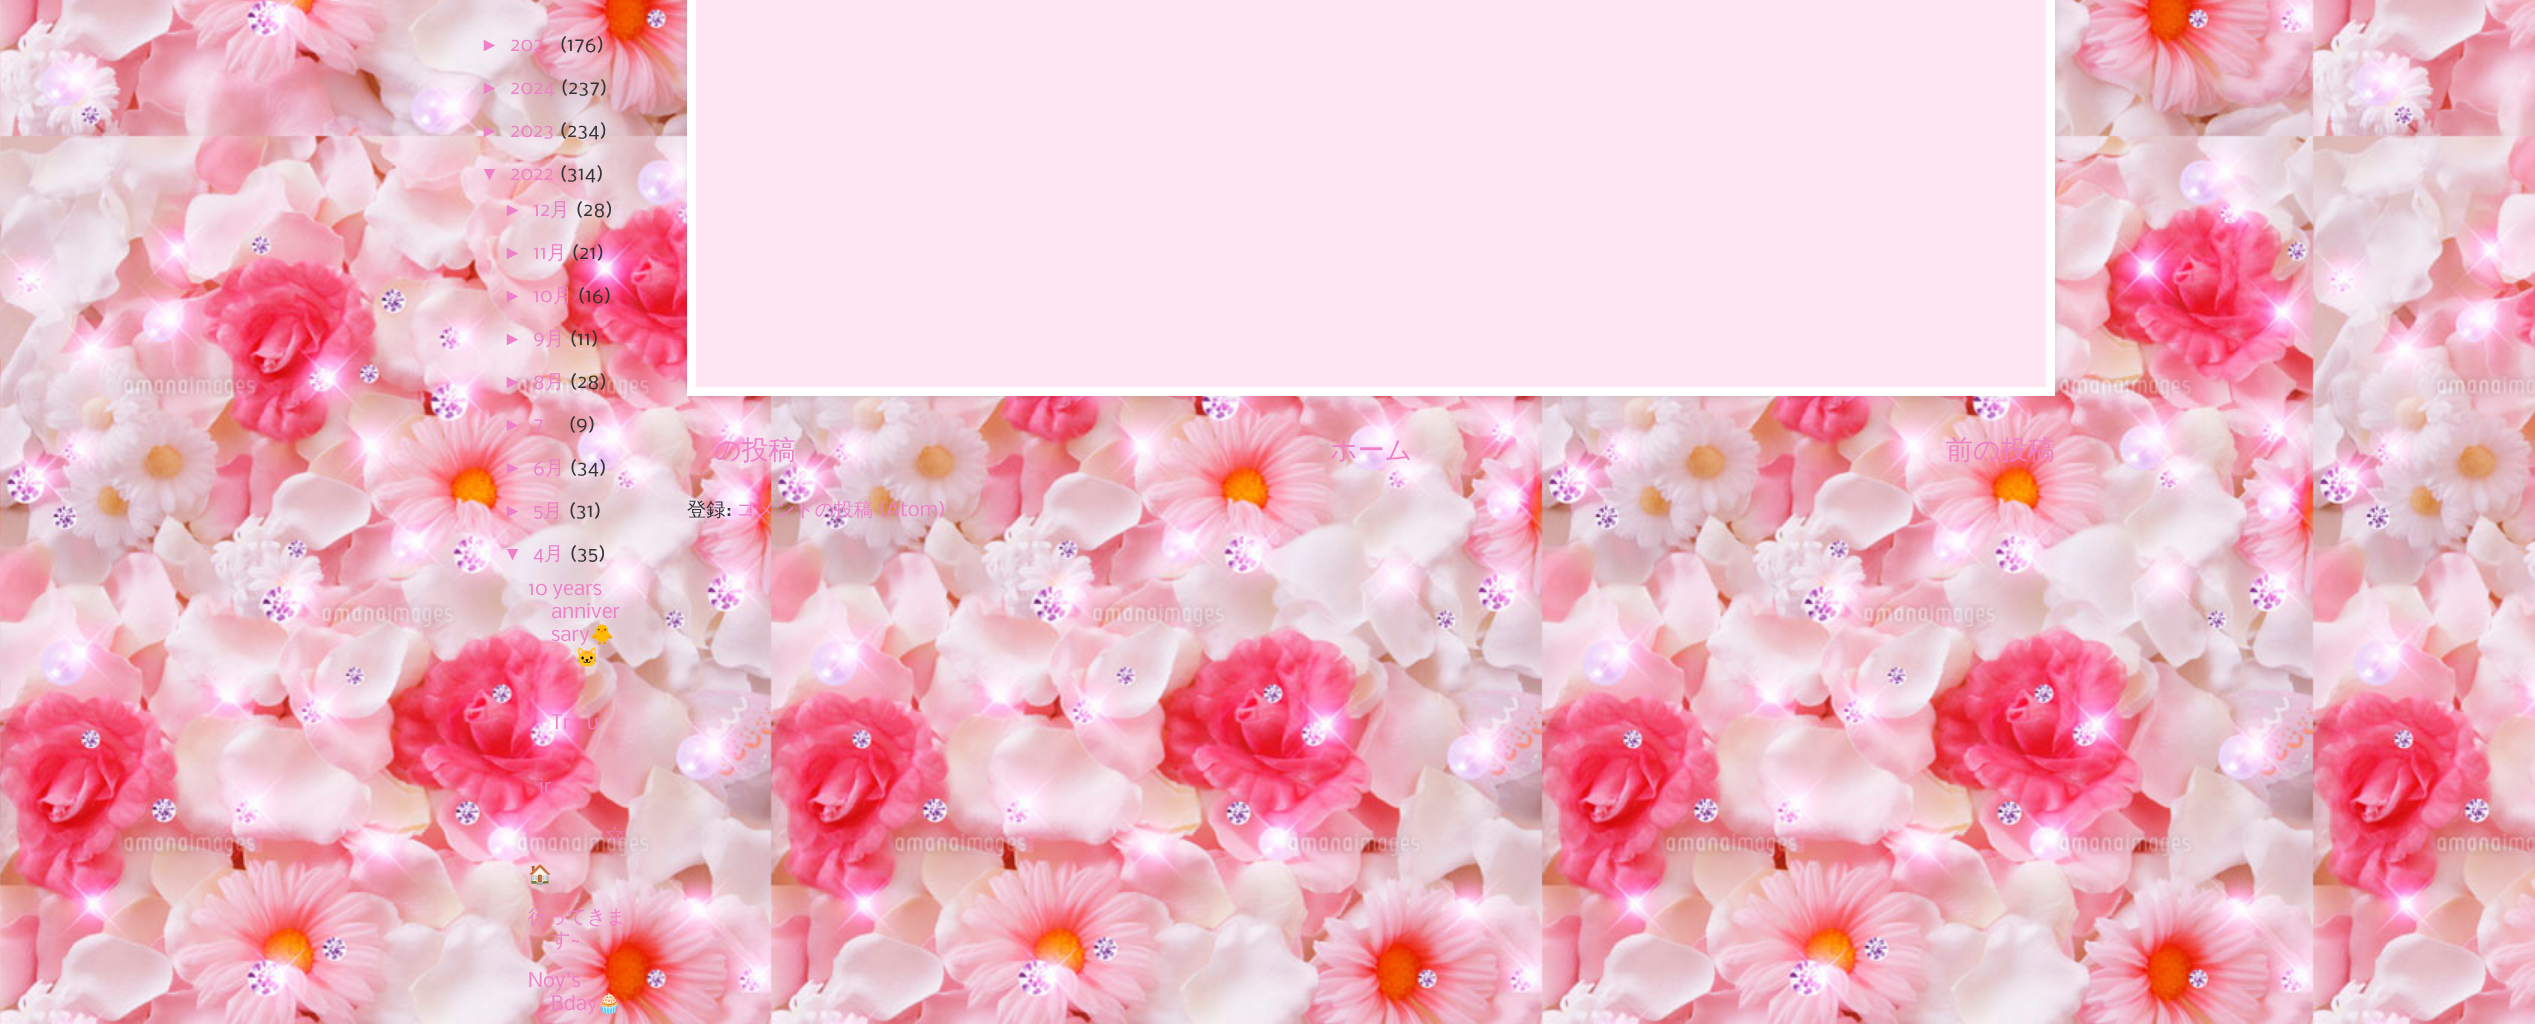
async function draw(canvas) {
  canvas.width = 2535;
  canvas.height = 1024;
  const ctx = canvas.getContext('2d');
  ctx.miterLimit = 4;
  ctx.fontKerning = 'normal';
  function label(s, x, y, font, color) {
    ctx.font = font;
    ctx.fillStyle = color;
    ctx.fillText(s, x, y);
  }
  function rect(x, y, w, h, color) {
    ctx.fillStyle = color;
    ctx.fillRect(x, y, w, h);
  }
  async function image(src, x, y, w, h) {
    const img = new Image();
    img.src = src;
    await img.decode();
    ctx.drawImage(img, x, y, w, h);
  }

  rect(0, 0, 2535, 1024, '#fff');
  await image('assets/img1.png', 0, 0, 2535, 1024);
  label('►', 480, 51, '19.25px Liberation Sans', '#ee80c7');
  label('202', 510, 51, '19.25px Nobile', '#ee80c7');
  label('(176)', 559, 51, '19.25px Nobile', '#333');
  label('►', 480, 94, '19.25px Liberation Sans', '#ee80c7');
  label('2024', 510, 94, '19.25px Nobile', '#ee80c7');
  label('(237)', 560, 94, '19.25px Nobile', '#333');
  label('►', 480, 137, '19.25px Liberation Sans', '#ee80c7');
  label('2023', 510, 137, '19.25px Nobile', '#ee80c7');
  label('(234)', 559, 137, '19.25px Nobile', '#333');
  label('▼', 480, 180, '19.25px Liberation Sans', '#ee80c7');
  label('2022', 510, 180, '19.25px Nobile', '#ee80c7');
  label('(314)', 559, 180, '19.25px Nobile', '#333');
  label('►', 503, 216, '19.25px Liberation Sans', '#ee80c7');
  label('12', 533, 216, '19.25px Nobile', '#ee80c7');
  label('月', 550, 216, '500 19.25px WenQuanYi Zen Hei', '#ee80c7');
  label('(28)', 575, 216, '19.25px Nobile', '#333');
  label('►', 503, 259, '19.25px Liberation Sans', '#ee80c7');
  label('11', 533, 259, '19.25px Nobile', '#ee80c7');
  label('月', 547, 259, '500 19.25px WenQuanYi Zen Hei', '#ee80c7');
  label('(21)', 571, 259, '19.25px Nobile', '#333');
  label('►', 503, 302, '19.25px Liberation Sans', '#ee80c7');
  label('10', 533, 302, '19.25px Nobile', '#ee80c7');
  label('月', 553, 302, '500 19.25px WenQuanYi Zen Hei', '#ee80c7');
  label('(16)', 577, 302, '19.25px Nobile', '#333');
  label('►', 503, 345, '19.25px Liberation Sans', '#ee80c7');
  label('9', 533, 345, '19.25px Nobile', '#ee80c7');
  label('月', 545, 345, '500 19.25px WenQuanYi Zen Hei', '#ee80c7');
  label('(11)', 569, 345, '19.25px Nobile', '#333');
  label('►', 503, 388, '19.25px Liberation Sans', '#ee80c7');
  label('8', 533, 388, '19.25px Nobile', '#ee80c7');
  label('月', 545, 388, '500 19.25px WenQuanYi Zen Hei', '#ee80c7');
  label('(28)', 569, 388, '19.25px Nobile', '#333');
  label('►', 503, 431, '19.25px Liberation Sans', '#ee80c7');
  label('7', 533, 431, '19.25px Nobile', '#ee80c7');
  label('(9)', 568, 431, '19.25px Nobile', '#333');
  label('►', 503, 474, '19.25px Liberation Sans', '#ee80c7');
  label('6', 533, 474, '19.25px Nobile', '#ee80c7');
  label('月', 545, 474, '500 19.25px WenQuanYi Zen Hei', '#ee80c7');
  label('(34)', 569, 474, '19.25px Nobile', '#333');
  label('►', 503, 517, '19.25px Liberation Sans', '#ee80c7');
  label('5', 533, 517, '19.25px Nobile', '#ee80c7');
  label('月', 543, 517, '500 19.25px WenQuanYi Zen Hei', '#ee80c7');
  label('(31)', 568, 517, '19.25px Nobile', '#333');
  label('▼', 503, 560, '19.25px Liberation Sans', '#ee80c7');
  label('4', 533, 560, '19.25px Nobile', '#ee80c7');
  label('月', 544, 560, '500 19.25px WenQuanYi Zen Hei', '#ee80c7');
  label('(35)', 569, 560, '19.25px Nobile', '#333');
  label('10 years', 528, 595, '19.25px Nobile', '#ee80c7');
  label('anniver', 551, 618, '19.25px Nobile', '#ee80c7');
  label('sary', 551, 641, '19.25px Nobile', '#ee80c7');
  label('🐥', 590, 641, '19.25px Noto Color Emoji', '#ee80c7');
  label('🐱', 575, 664, '19.25px Noto Color Emoji', '#ee80c7');
  label('Tr', 551, 729, '19.25px Nobile', '#ee80c7');
  label('u', 587, 729, '19.25px Nobile', '#ee80c7');
  label('ir', 539, 793, '19.25px Nobile', '#ee80c7');
  label('☆', 605, 840, '500 19.25px WenQuanYi Zen Hei', '#ee80c7');
  label('🏠', 528, 881, '19.25px Noto Color Emoji', '#ee80c7');
  label('行ってきま', 528, 923, '500 19.25px WenQuanYi Zen Hei', '#ee80c7');
  label('す', 551, 946, '500 19.25px WenQuanYi Zen Hei', '#ee80c7');
  label('~', 571, 946, '19.25px Nobile', '#ee80c7');
  label('Noy\'s', 528, 987, '19.25px Nobile', '#ee80c7');
  label('Bday', 551, 1010, '19.25px Nobile', '#ee80c7');
  label('🧁', 597, 1010, '19.25px Noto Color Emoji', '#ee80c7');
  ctx.fillStyle = '#0000001a';
  ctx.filter = 'blur(4px)';
  ctx.beginPath();
  ctx.rect(687, -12, 1368, 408);
  ctx.fill();
  ctx.filter = 'none';
  ctx.fillStyle = '#ffe6f2';
  ctx.beginPath();
  ctx.rect(691.5, -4.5, 1359, 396);
  ctx.fill();
  ctx.strokeStyle = '#fff';
  ctx.lineWidth = 9;
  ctx.stroke();
  label('の投稿', 714, 459, '500 27px WenQuanYi Zen Hei', '#ee80c7');
  label('ホーム', 1330, 459, '500 27px WenQuanYi Zen Hei', '#ee80c7');
  label('前の投稿', 1946, 459, '500 27px WenQuanYi Zen Hei', '#ee80c7');
  label('登録', 687, 516, '500 19.25px WenQuanYi Zen Hei', '#333');
  label(':', 726, 516, '19.25px Nobile', '#333');
  label('コメントの投稿', 736, 516, '500 19.25px WenQuanYi Zen Hei', '#ee80c7');
  label('(Atom)', 878, 516, '19.25px Nobile', '#ee80c7');
}

draw(document.querySelector('canvas'));
